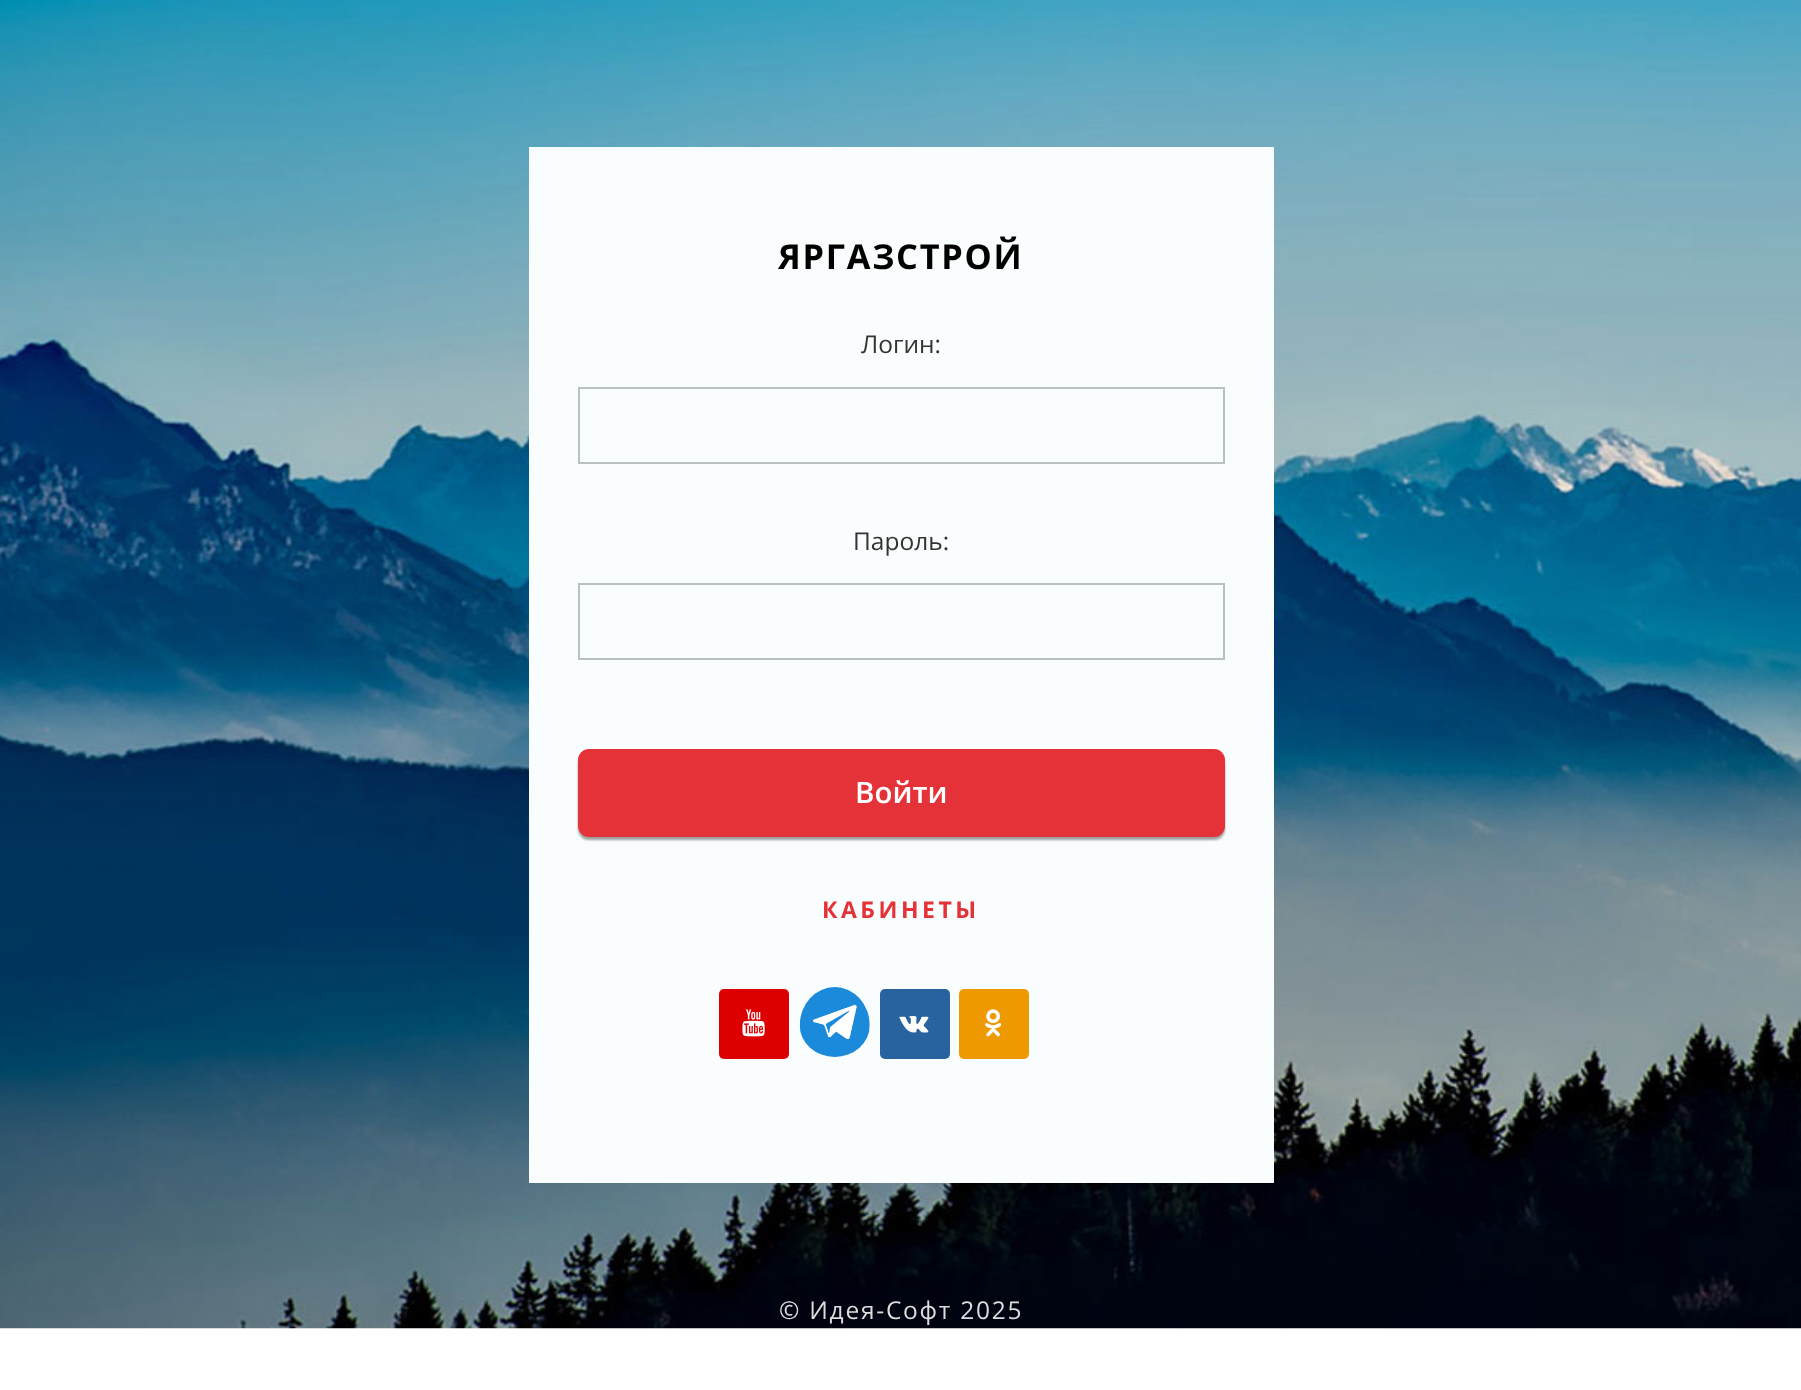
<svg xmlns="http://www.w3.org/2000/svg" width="1801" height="1390">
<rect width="100%" height="100%" fill="#fff"/>
<image x="0" y="0" width="1801" height="1329" href="media/1.png"/>
<rect x="529" y="147" width="745" height="1036" fill="#fafdfd"/>
<text x="778" y="269" style="font-family:Open Sans;font-size:34.25px;font-weight:bold;letter-spacing:1.75px;fill:#000">ЯРГАЗСТРОЙ</text>
<text x="861" y="353" style="font-family:Open Sans;font-size:24.5px;fill:#333">Логин:</text>
<rect x="579" y="388" width="645" height="75" fill="none" stroke="#b9c0c3" stroke-width="2"/>
<text x="853" y="550" style="font-family:Open Sans;font-size:24.5px;fill:#333">Пароль:</text>
<rect x="579" y="584" width="645" height="75" fill="none" stroke="#b9c0c3" stroke-width="2"/>
<rect x="578" y="753" width="647" height="87" rx="11" fill="#1c1c1d6b" filter="blur(1px)"/>
<rect x="578" y="749" width="647" height="88" rx="11" fill="#e53238"/>
<text x="855" y="803" style="font-family:Open Sans;font-size:29.5px;font-weight:600;fill:#fff">Войти</text>
<text x="822" y="918" style="font-family:Open Sans;font-size:23px;font-weight:bold;letter-spacing:3.5px;fill:#e53238">КАБИНЕТЫ</text>
<rect x="719" y="989" width="70" height="70" rx="5" fill="#d00"/>
<image x="742" y="1009" width="23" height="28" href="media/2.png"/>
<image x="799" y="987" width="71" height="70" href="media/3.png"/>
<rect x="880" y="989" width="70" height="70" rx="5" fill="#2863a0"/>
<image x="899" y="1016" width="30" height="17" href="media/4.png"/>
<rect x="959" y="989" width="70" height="70" rx="5" fill="#e90"/>
<image x="985" y="1009" width="17" height="28" href="media/5.png"/>
<text x="779" y="1319" style="font-family:Open Sans;font-size:24.5px;letter-spacing:1.75px;fill:#ddd">© Идея-Софт 2025</text>
</svg>
